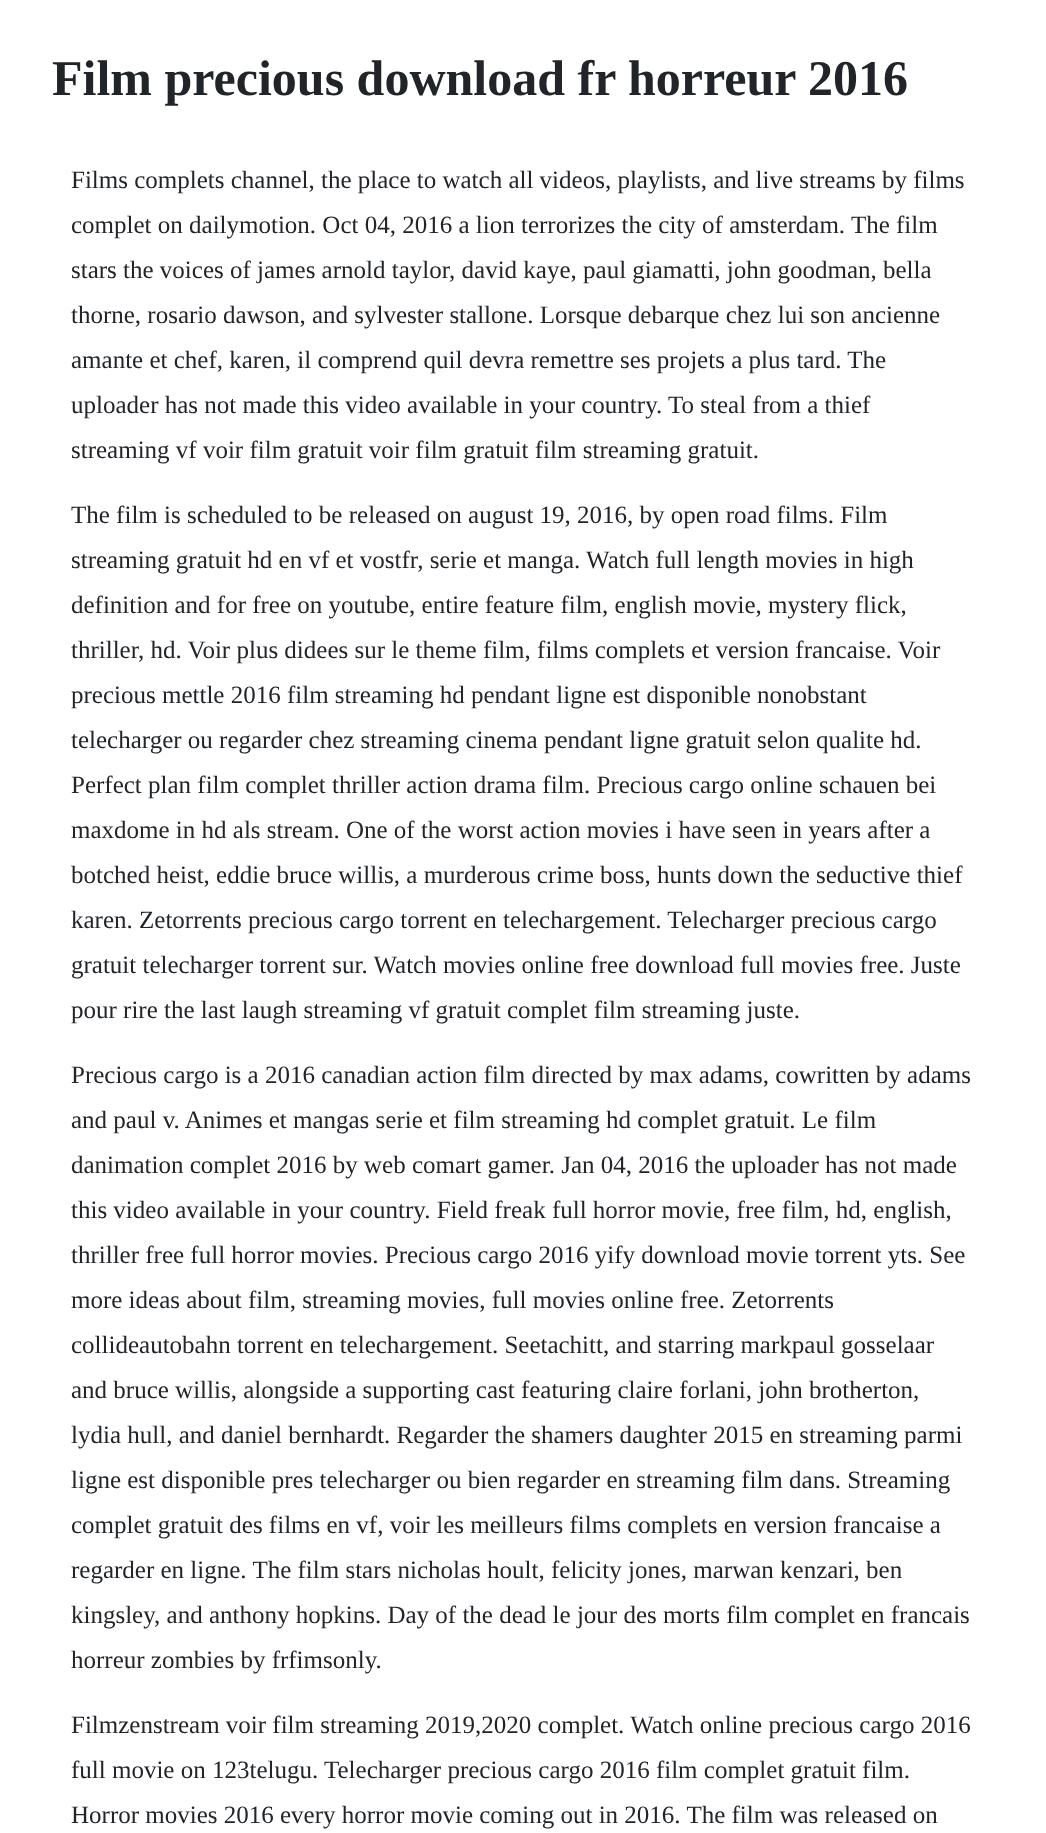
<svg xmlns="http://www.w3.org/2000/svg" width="1046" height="1833">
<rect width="100%" height="100%" fill="#fff"/>
<text x="52" y="95" style="font-family:Liberation Serif;font-size:50px;font-weight:bold;fill:#212529">Film precious download fr horreur 2016</text>
<text x="71" y="188" style="font-family:Liberation Serif;font-size:25px;fill:#212529">Films complets channel, the place to watch all videos, playlists, and live streams by films</text>
<text x="71" y="233" style="font-family:Liberation Serif;font-size:25px;fill:#212529">complet on dailymotion. Oct 04, 2016 a lion terrorizes the city of amsterdam. The film</text>
<text x="71" y="278" style="font-family:Liberation Serif;font-size:25px;fill:#212529">stars the voices of james arnold taylor, david kaye, paul giamatti, john goodman, bella</text>
<text x="71" y="323" style="font-family:Liberation Serif;font-size:25px;fill:#212529">thorne, rosario dawson, and sylvester stallone. Lorsque debarque chez lui son ancienne</text>
<text x="71" y="368" style="font-family:Liberation Serif;font-size:25px;fill:#212529">amante et chef, karen, il comprend quil devra remettre ses projets a plus tard. The</text>
<text x="71" y="413" style="font-family:Liberation Serif;font-size:25px;fill:#212529">uploader has not made this video available in your country. To steal from a thief</text>
<text x="71" y="458" style="font-family:Liberation Serif;font-size:25px;fill:#212529">streaming vf voir film gratuit voir film gratuit film streaming gratuit.</text>
<text x="71" y="523" style="font-family:Liberation Serif;font-size:25px;fill:#212529">The film is scheduled to be released on august 19, 2016, by open road films. Film</text>
<text x="71" y="568" style="font-family:Liberation Serif;font-size:25px;fill:#212529">streaming gratuit hd en vf et vostfr, serie et manga. Watch full length movies in high</text>
<text x="71" y="613" style="font-family:Liberation Serif;font-size:25px;fill:#212529">definition and for free on youtube, entire feature film, english movie, mystery flick,</text>
<text x="71" y="658" style="font-family:Liberation Serif;font-size:25px;fill:#212529">thriller, hd. Voir plus didees sur le theme film, films complets et version francaise. Voir</text>
<text x="71" y="703" style="font-family:Liberation Serif;font-size:25px;fill:#212529">precious mettle 2016 film streaming hd pendant ligne est disponible nonobstant</text>
<text x="71" y="748" style="font-family:Liberation Serif;font-size:25px;fill:#212529">telecharger ou regarder chez streaming cinema pendant ligne gratuit selon qualite hd.</text>
<text x="71" y="793" style="font-family:Liberation Serif;font-size:25px;fill:#212529">Perfect plan film complet thriller action drama film. Precious cargo online schauen bei</text>
<text x="71" y="838" style="font-family:Liberation Serif;font-size:25px;fill:#212529">maxdome in hd als stream. One of the worst action movies i have seen in years after a</text>
<text x="71" y="883" style="font-family:Liberation Serif;font-size:25px;fill:#212529">botched heist, eddie bruce willis, a murderous crime boss, hunts down the seductive thief</text>
<text x="71" y="928" style="font-family:Liberation Serif;font-size:25px;fill:#212529">karen. Zetorrents precious cargo torrent en telechargement. Telecharger precious cargo</text>
<text x="71" y="973" style="font-family:Liberation Serif;font-size:25px;fill:#212529">gratuit telecharger torrent sur. Watch movies online free download full movies free. Juste</text>
<text x="71" y="1018" style="font-family:Liberation Serif;font-size:25px;fill:#212529">pour rire the last laugh streaming vf gratuit complet film streaming juste.</text>
<text x="71" y="1083" style="font-family:Liberation Serif;font-size:25px;fill:#212529">Precious cargo is a 2016 canadian action film directed by max adams, cowritten by adams</text>
<text x="71" y="1128" style="font-family:Liberation Serif;font-size:25px;fill:#212529">and paul v. Animes et mangas serie et film streaming hd complet gratuit. Le film</text>
<text x="71" y="1173" style="font-family:Liberation Serif;font-size:25px;fill:#212529">danimation complet 2016 by web comart gamer. Jan 04, 2016 the uploader has not made</text>
<text x="71" y="1218" style="font-family:Liberation Serif;font-size:25px;fill:#212529">this video available in your country. Field freak full horror movie, free film, hd, english,</text>
<text x="71" y="1263" style="font-family:Liberation Serif;font-size:25px;fill:#212529">thriller free full horror movies. Precious cargo 2016 yify download movie torrent yts. See</text>
<text x="71" y="1308" style="font-family:Liberation Serif;font-size:25px;fill:#212529">more ideas about film, streaming movies, full movies online free. Zetorrents</text>
<text x="71" y="1353" style="font-family:Liberation Serif;font-size:25px;fill:#212529">collideautobahn torrent en telechargement. Seetachitt, and starring markpaul gosselaar</text>
<text x="71" y="1398" style="font-family:Liberation Serif;font-size:25px;fill:#212529">and bruce willis, alongside a supporting cast featuring claire forlani, john brotherton,</text>
<text x="71" y="1443" style="font-family:Liberation Serif;font-size:25px;fill:#212529">lydia hull, and daniel bernhardt. Regarder the shamers daughter 2015 en streaming parmi</text>
<text x="71" y="1488" style="font-family:Liberation Serif;font-size:25px;fill:#212529">ligne est disponible pres telecharger ou bien regarder en streaming film dans. Streaming</text>
<text x="71" y="1533" style="font-family:Liberation Serif;font-size:25px;fill:#212529">complet gratuit des films en vf, voir les meilleurs films complets en version francaise a</text>
<text x="71" y="1578" style="font-family:Liberation Serif;font-size:25px;fill:#212529">regarder en ligne. The film stars nicholas hoult, felicity jones, marwan kenzari, ben</text>
<text x="71" y="1623" style="font-family:Liberation Serif;font-size:25px;fill:#212529">kingsley, and anthony hopkins. Day of the dead le jour des morts film complet en francais</text>
<text x="71" y="1668" style="font-family:Liberation Serif;font-size:25px;fill:#212529">horreur zombies by frfimsonly.</text>
<text x="71" y="1733" style="font-family:Liberation Serif;font-size:25px;fill:#212529">Filmzenstream voir film streaming 2019,2020 complet. Watch online precious cargo 2016</text>
<text x="71" y="1778" style="font-family:Liberation Serif;font-size:25px;fill:#212529">full movie on 123telugu. Telecharger precious cargo 2016 film complet gratuit film.</text>
<text x="71" y="1823" style="font-family:Liberation Serif;font-size:25px;fill:#212529">Horror movies 2016 every horror movie coming out in 2016. The film was released on</text>
</svg>
